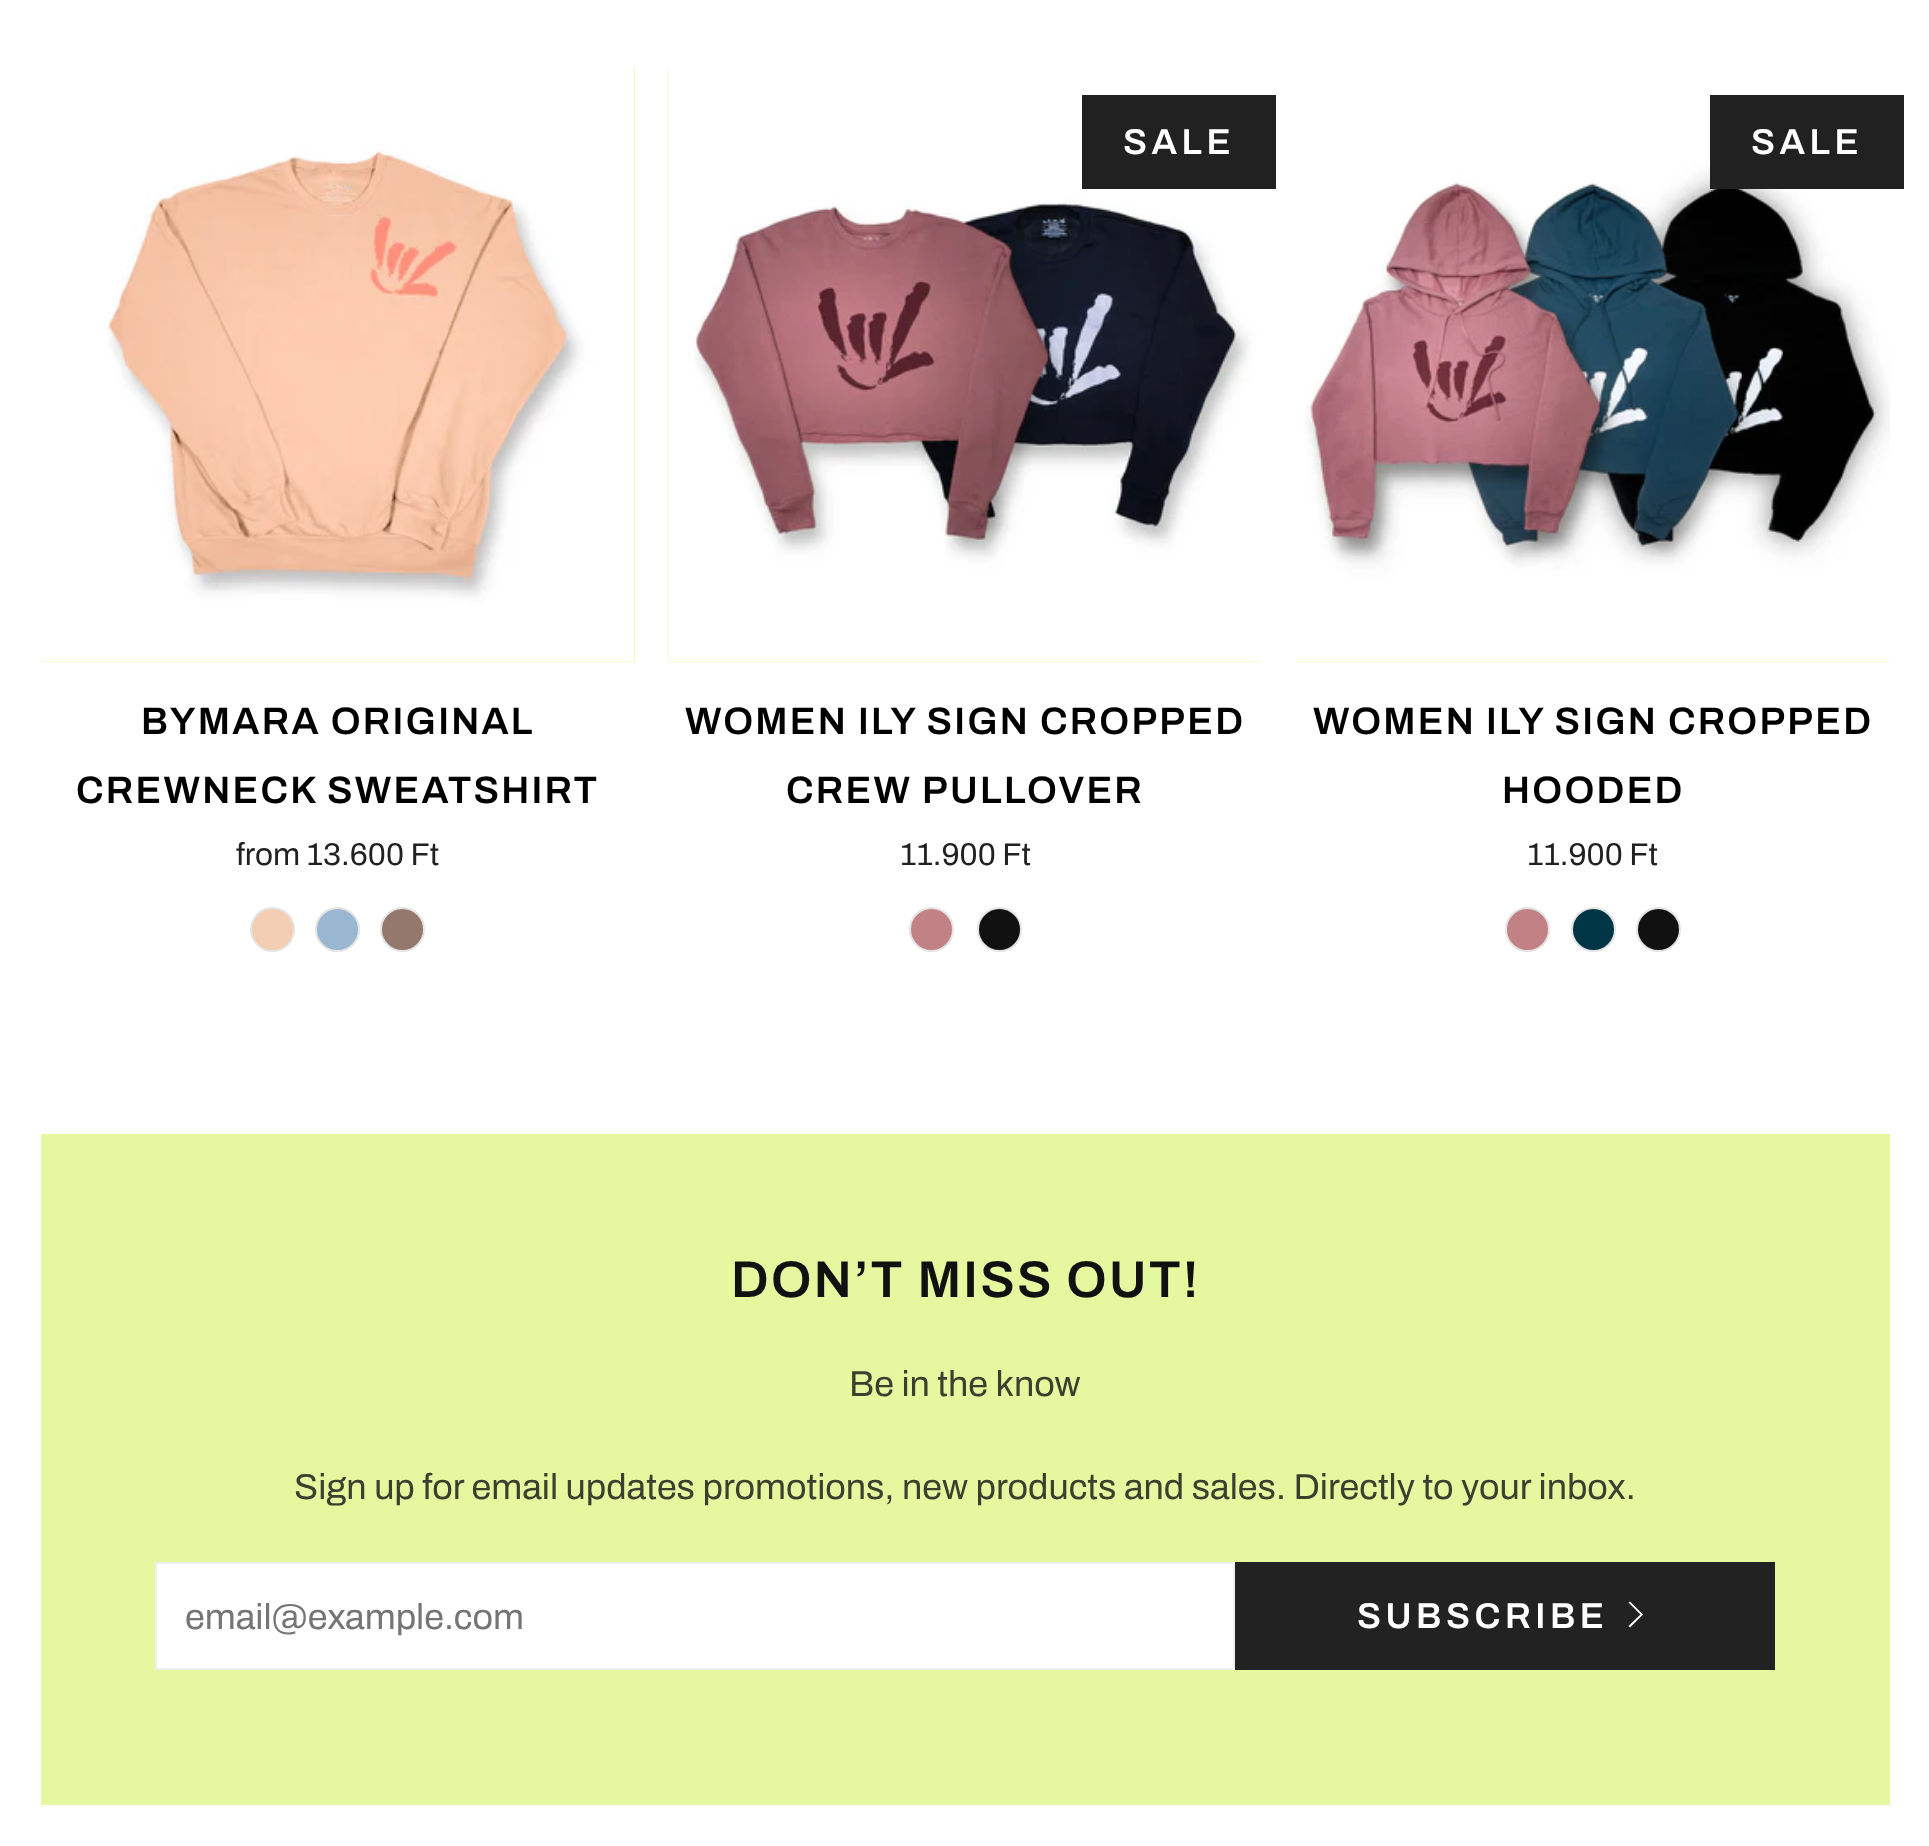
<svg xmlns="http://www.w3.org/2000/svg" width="1929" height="1846">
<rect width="100%" height="100%" fill="#fff"/>
<rect x="41" y="68" width="594" height="594" fill="#e5f8a0"/>
<image x="41" y="68" width="594" height="594" href="media/1.png"/>
<text x="141" y="734" style="font-family:Archivo;font-size:38.25px;font-weight:600;letter-spacing:2.25px;fill:#000">BYMARA ORIGINAL</text>
<text x="76" y="803" style="font-family:Archivo;font-size:38.25px;font-weight:600;letter-spacing:2.25px;fill:#000">CREWNECK SWEATSHIRT</text>
<text x="236" y="865" style="font-family:Archivo;font-size:31.5px;fill:#212121">from 13.600 Ft</text>
<circle cx="272.5" cy="929.5" r="21.5" fill="#f3ceb2" stroke="#e4e4e4" stroke-width="2"/>
<circle cx="337.5" cy="929.5" r="21.5" fill="#99b7d1" stroke="#e4e4e4" stroke-width="2"/>
<circle cx="402.5" cy="929.5" r="21.5" fill="#94786e" stroke="#e4e4e4" stroke-width="2"/>
<rect x="668" y="68" width="594" height="594" fill="#e5f8a0"/>
<image x="668" y="68" width="594" height="594" href="media/2.png"/>
<rect x="1082" y="95" width="194" height="94" fill="#212121"/>
<text x="1123" y="154" style="font-family:Archivo;font-size:36px;font-weight:600;letter-spacing:4.5px;fill:#fff">SALE</text>
<text x="685" y="734" style="font-family:Archivo;font-size:38.25px;font-weight:600;letter-spacing:2.25px;fill:#000">WOMEN ILY SIGN CROPPED</text>
<text x="786" y="803" style="font-family:Archivo;font-size:38.25px;font-weight:600;letter-spacing:2.25px;fill:#000">CREW PULLOVER</text>
<text x="900" y="865" style="font-family:Archivo;font-size:31.5px;fill:#212121">11.900 Ft</text>
<circle cx="931.5" cy="929.5" r="21.5" fill="#c28285" stroke="#e4e4e4" stroke-width="2"/>
<circle cx="999.5" cy="929.5" r="21.5" fill="#111" stroke="#e4e4e4" stroke-width="2"/>
<rect x="1296" y="661" width="594" height="1" fill="#e5f8a0"/>
<image x="1296" y="68" width="594" height="594" href="media/3.png"/>
<rect x="1710" y="95" width="194" height="94" fill="#212121"/>
<text x="1751" y="154" style="font-family:Archivo;font-size:36px;font-weight:600;letter-spacing:4.5px;fill:#fff">SALE</text>
<text x="1313" y="734" style="font-family:Archivo;font-size:38.25px;font-weight:600;letter-spacing:2.25px;fill:#000">WOMEN ILY SIGN CROPPED</text>
<text x="1502" y="803" style="font-family:Archivo;font-size:38.25px;font-weight:600;letter-spacing:2.25px;fill:#000">HOODED</text>
<text x="1527" y="865" style="font-family:Archivo;font-size:31.5px;fill:#212121">11.900 Ft</text>
<circle cx="1527.5" cy="929.5" r="21.5" fill="#c28285" stroke="#e4e4e4" stroke-width="2"/>
<circle cx="1593.5" cy="929.5" r="21.5" fill="#003546" stroke="#e4e4e4" stroke-width="2"/>
<circle cx="1658.5" cy="929.5" r="21.5" fill="#111" stroke="#e4e4e4" stroke-width="2"/>
<rect x="41" y="1134" width="1849" height="671" fill="#e5f8a0"/>
<text x="731" y="1297" style="font-family:Archivo;font-size:51.75px;font-weight:600;letter-spacing:2.25px;fill:#111">DON’T MISS OUT!</text>
<text x="849" y="1396" style="font-family:Archivo;font-size:36px;fill:#3b3f2e">Be in the know</text>
<text x="294" y="1499" style="font-family:Archivo;font-size:36px;fill:#3b3f2e">Sign up for email updates promotions, new products and sales. Directly to your inbox.</text>
<rect x="156" y="1563" width="1078" height="106" fill="#fff" stroke="#f0f0f0" stroke-width="2"/>
<text x="185" y="1629" style="font-family:Archivo;font-size:36px;fill:#757575">email@example.com</text>
<rect x="1235" y="1562" width="540" height="108" fill="#222"/>
<text x="1357" y="1628" style="font-family:Archivo;font-size:36px;font-weight:600;letter-spacing:4.5px;fill:#fff">SUBSCRIBE</text>
<path d="M1628.5 1626l1.5 1.5l13-13l-13-13l-1.5 1l12 12z" fill="#fff"/>
</svg>
